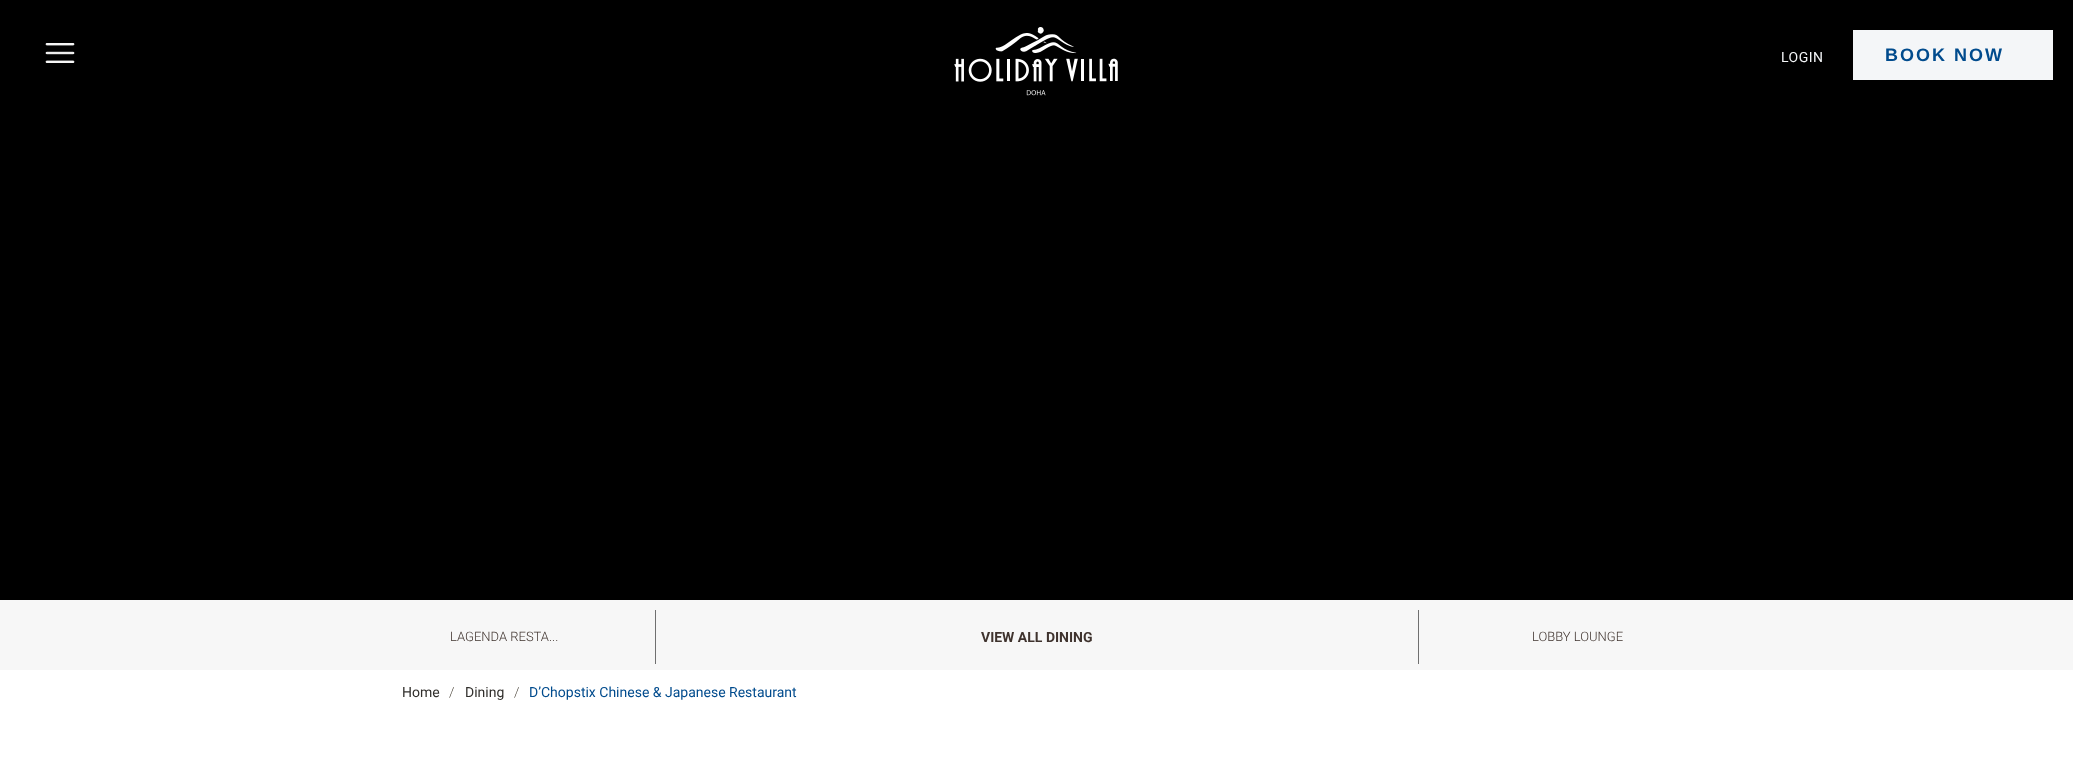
<svg xmlns="http://www.w3.org/2000/svg" width="2073" height="777">
<rect width="100%" height="100%" fill="#fff"/>
<rect width="2073" height="600" fill="#000"/>
<image x="45" y="43" width="30" height="20" href="media/1.png"/>
<image x="954" y="27" width="164" height="69" href="media/2.png"/>
<text x="1781" y="62" style="font-family:Roboto;font-size:14px;letter-spacing:0.5px;fill:#f4f6f8">LOGIN</text>
<rect x="1853" y="30" width="200" height="50" fill="#f4f6f8"/>
<text x="1885" y="61" style="font-family:Liberation Sans;font-size:18px;font-weight:bold;letter-spacing:2px;fill:#004b8d">BOOK NOW</text>
<rect y="600" width="2073" height="70" fill="#f7f7f7"/>
<rect x="655" y="610" width="1" height="54" fill="#707070"/>
<text x="450" y="641" style="font-family:Roboto;font-size:13px;font-weight:300;fill:#3f332e">LAGENDA RESTA...</text>
<text x="981" y="642" style="font-family:Roboto;font-size:14px;font-weight:bold;fill:#3f332e">VIEW ALL DINING</text>
<rect x="1418" y="610" width="1" height="54" fill="#707070"/>
<text x="1532" y="641" style="font-family:Roboto;font-size:13px;font-weight:300;fill:#3f332e">LOBBY LOUNGE</text>
<text x="402" y="697" style="font-family:Roboto;font-size:14px;fill:#312f2c">Home</text>
<text x="449" y="697" style="font-family:Roboto;font-size:14px;font-weight:200;fill:#231b0e">/</text>
<text x="465" y="697" style="font-family:Roboto;font-size:14px;fill:#312f2c">Dining</text>
<text x="514" y="697" style="font-family:Roboto;font-size:14px;font-weight:200;fill:#231b0e">/</text>
<text x="529" y="697" style="font-family:Roboto;font-size:14px;fill:#004b8d">D’Chopstix Chinese &amp; Japanese Restaurant</text>
</svg>
